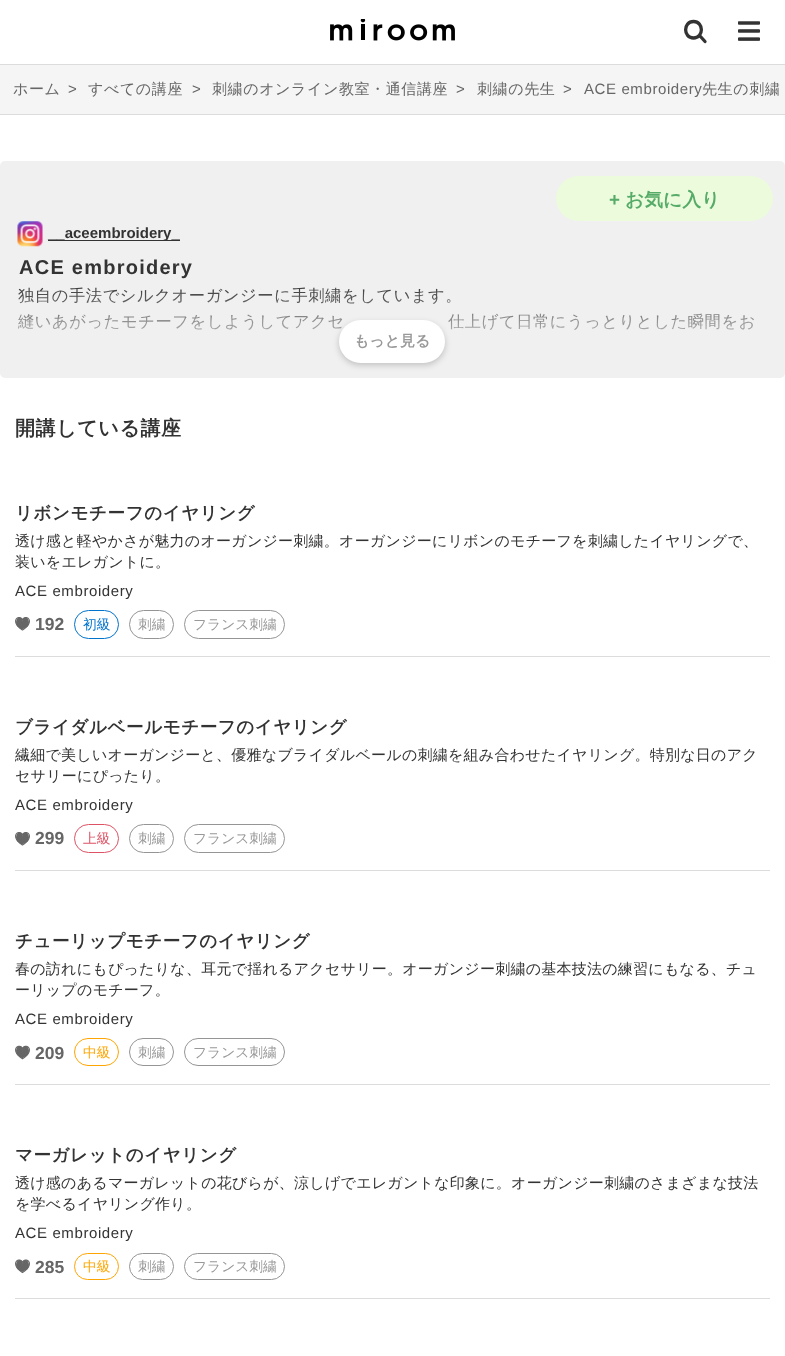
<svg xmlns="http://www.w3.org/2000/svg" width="785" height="1356">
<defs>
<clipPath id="clip1"><rect x="18" y="284" width="750" height="75"/></clipPath>
<linearGradient id="g1" gradientUnits="userSpaceOnUse" x1="393" y1="284" x2="393" y2="363"><stop offset="0" stop-color="#f0f0f0" stop-opacity="0"/><stop offset="0.9" stop-color="#f0f0f0" stop-opacity="0.95"/></linearGradient>
</defs>
<rect width="100%" height="100%" fill="#fff"/>
<rect y="64" width="785" height="1" fill="#dcdcdc"/>
<image x="330" y="19" width="125" height="22" href="media/1.png"/>
<path d="M693.5 38c10.5 0 10.5-16.5 0-16.5c-10.5 0-10.5 16.5 0 16.5zm11.5 3.5l-4.5-5" fill="none" stroke="#333" stroke-width="3.3" stroke-linecap="round" stroke-linejoin="round"/>
<image x="738" y="21" width="22" height="20" href="media/2.png"/>
<rect y="65" width="785" height="49" fill="#f5f5f5"/>
<rect y="114" width="785" height="1" fill="#dcdcdc"/>
<text x="13" y="94" style="font-family:WenQuanYi Zen Hei;font-size:15px;font-weight:500;letter-spacing:0.6px;fill:#666">ホーム</text>
<text x="68" y="94" style="font-family:Liberation Sans;font-size:15px;letter-spacing:4px;fill:#666">&gt;</text>
<text x="88" y="94" style="font-family:WenQuanYi Zen Hei;font-size:15px;font-weight:500;letter-spacing:0.6px;fill:#666">すべての講座</text>
<text x="192" y="94" style="font-family:Liberation Sans;font-size:15px;letter-spacing:4px;fill:#666">&gt;</text>
<text x="212" y="94" style="font-family:WenQuanYi Zen Hei;font-size:15px;font-weight:500;letter-spacing:0.6px;fill:#666">刺繍のオンライン教室・通信講座</text>
<text x="456" y="94" style="font-family:Liberation Sans;font-size:15px;letter-spacing:4px;fill:#666">&gt;</text>
<text x="477" y="94" style="font-family:WenQuanYi Zen Hei;font-size:15px;font-weight:500;letter-spacing:0.6px;fill:#666">刺繍の先生</text>
<text x="563" y="94" style="font-family:Liberation Sans;font-size:15px;letter-spacing:4px;fill:#666">&gt;</text>
<text x="584" y="94" style="font-family:Liberation Sans;font-size:15px;letter-spacing:0.6px;fill:#666">ACE embroidery</text>
<text x="702" y="94" style="font-family:WenQuanYi Zen Hei;font-size:15px;font-weight:500;letter-spacing:0.6px;fill:#666">先生の刺繍</text>
<rect y="161" width="785" height="217" rx="5" fill="#f0f0f0"/>
<rect x="556" y="176" width="217" height="45" rx="22.5" fill="#ebfbdc"/>
<text x="609" y="206" style="font-family:Liberation Sans;font-size:18.75px;font-weight:bold;fill:#55ab67">+</text>
<text x="625" y="206" style="font-family:WenQuanYi Zen Hei;font-size:18.75px;font-weight:bold;fill:#55ab67">お気に入り</text>
<image x="17" y="221" width="26" height="26" href="media/3.png"/>
<rect x="48" y="240" width="132" height="1" fill="#333"/>
<text x="48" y="238" style="font-family:Liberation Sans;font-size:15px;font-weight:bold;fill:#333">__aceembroidery_</text>
<text x="19" y="274" style="font-family:Liberation Sans;font-size:20px;font-weight:bold;letter-spacing:1.25px;fill:#333">ACE embroidery</text>
<text x="18" y="301" style="font-family:WenQuanYi Zen Hei;font-size:16.25px;font-weight:500;letter-spacing:0.6px;fill:#333">独自の手法でシルクオーガンジーに手刺繍をしています。</text>
<g clip-path="url(#clip1)">
<text x="18" y="327" style="font-family:WenQuanYi Zen Hei;font-size:16.25px;font-weight:500;letter-spacing:0.6px;fill:#333">縫いあがったモチーフをしようしてアクセ</text>
</g>
<text x="448" y="327" style="font-family:WenQuanYi Zen Hei;font-size:16.25px;font-weight:500;letter-spacing:0.6px;fill:#333">仕上げて日常にうっとりとした瞬間をお</text>
<rect x="18" y="287" width="736" height="43" fill="url(#g1)"/>
<rect x="339" y="323" width="106" height="42" rx="21" fill="#00000033" filter="blur(3px)"/>
<rect x="339" y="320" width="106" height="43" rx="21.5" fill="#fff"/>
<text x="354" y="346" style="font-family:WenQuanYi Zen Hei;font-size:15px;font-weight:bold;fill:#999">もっと見る</text>
<text x="15" y="435" style="font-family:WenQuanYi Zen Hei;font-size:20px;font-weight:bold;letter-spacing:0.6px;fill:#333">開講している講座</text>
<rect x="15" y="656" width="755" height="1" fill="#dcdcdc"/>
<text x="15" y="519" style="font-family:WenQuanYi Zen Hei;font-size:17.5px;font-weight:bold;letter-spacing:0.6px;fill:#333">リボンモチーフのイヤリング</text>
<text x="15" y="546" style="font-family:WenQuanYi Zen Hei;font-size:15px;font-weight:500;letter-spacing:0.25px;fill:#333">透け感と軽やかさが魅力のオーガンジー刺繍。オーガンジーにリボンのモチーフを刺繍したイヤリングで、</text>
<text x="15" y="567" style="font-family:WenQuanYi Zen Hei;font-size:15px;font-weight:500;letter-spacing:0.25px;fill:#333">装いをエレガントに。</text>
<text x="15" y="596" style="font-family:Liberation Sans;font-size:15px;letter-spacing:0.6px;fill:#333">ACE embroidery</text>
<image x="15" y="617" width="15" height="14" href="media/4.png"/>
<text x="35" y="630" style="font-family:Liberation Sans;font-size:17.5px;font-weight:bold;fill:#666">192</text>
<rect x="74.5" y="610.5" width="44" height="28" rx="14" fill="none" stroke="#0073cc"/>
<text x="83" y="629" style="font-family:WenQuanYi Zen Hei;font-size:13.75px;font-weight:500;fill:#0073cc">初級</text>
<rect x="129.5" y="610.5" width="44" height="28" rx="14" fill="none" stroke="#969595"/>
<text x="138" y="629" style="font-family:WenQuanYi Zen Hei;font-size:13.75px;font-weight:500;fill:#999">刺繍</text>
<rect x="184.5" y="610.5" width="100" height="28" rx="14" fill="none" stroke="#969595"/>
<text x="193" y="629" style="font-family:WenQuanYi Zen Hei;font-size:13.75px;font-weight:500;fill:#999">フランス刺繍</text>
<rect x="15" y="870" width="755" height="1" fill="#dcdcdc"/>
<text x="15" y="733" style="font-family:WenQuanYi Zen Hei;font-size:17.5px;font-weight:bold;letter-spacing:0.6px;fill:#333">ブライダルベールモチーフのイヤリング</text>
<text x="15" y="760" style="font-family:WenQuanYi Zen Hei;font-size:15px;font-weight:500;letter-spacing:0.25px;fill:#333">繊細で美しいオーガンジーと、優雅なブライダルベールの刺繍を組み合わせたイヤリング。特別な日のアク</text>
<text x="15" y="781" style="font-family:WenQuanYi Zen Hei;font-size:15px;font-weight:500;letter-spacing:0.25px;fill:#333">セサリーにぴったり。</text>
<text x="15" y="810" style="font-family:Liberation Sans;font-size:15px;letter-spacing:0.6px;fill:#333">ACE embroidery</text>
<image x="15" y="832" width="15" height="14" href="media/4.png"/>
<text x="35" y="844" style="font-family:Liberation Sans;font-size:17.5px;font-weight:bold;fill:#666">299</text>
<rect x="74.5" y="824.5" width="44" height="28" rx="14" fill="none" stroke="#dd5365"/>
<text x="83" y="843" style="font-family:WenQuanYi Zen Hei;font-size:13.75px;font-weight:500;fill:#dd5365">上級</text>
<rect x="129.5" y="824.5" width="44" height="28" rx="14" fill="none" stroke="#969595"/>
<text x="138" y="843" style="font-family:WenQuanYi Zen Hei;font-size:13.75px;font-weight:500;fill:#999">刺繍</text>
<rect x="184.5" y="824.5" width="100" height="28" rx="14" fill="none" stroke="#969595"/>
<text x="193" y="843" style="font-family:WenQuanYi Zen Hei;font-size:13.75px;font-weight:500;fill:#999">フランス刺繍</text>
<rect x="15" y="1084" width="755" height="1" fill="#dcdcdc"/>
<text x="15" y="947" style="font-family:WenQuanYi Zen Hei;font-size:17.5px;font-weight:bold;letter-spacing:0.6px;fill:#333">チューリップモチーフのイヤリング</text>
<text x="15" y="974" style="font-family:WenQuanYi Zen Hei;font-size:15px;font-weight:500;letter-spacing:0.25px;fill:#333">春の訪れにもぴったりな、耳元で揺れるアクセサリー。オーガンジー刺繍の基本技法の練習にもなる、チュ</text>
<text x="15" y="995" style="font-family:WenQuanYi Zen Hei;font-size:15px;font-weight:500;letter-spacing:0.25px;fill:#333">ーリップのモチーフ。</text>
<text x="15" y="1024" style="font-family:Liberation Sans;font-size:15px;letter-spacing:0.6px;fill:#333">ACE embroidery</text>
<image x="15" y="1045" width="15" height="15" href="media/5.png"/>
<text x="35" y="1059" style="font-family:Liberation Sans;font-size:17.5px;font-weight:bold;fill:#666">209</text>
<rect x="74.5" y="1038.5" width="44" height="27" rx="13.5" fill="none" stroke="#ffa500"/>
<text x="83" y="1057" style="font-family:WenQuanYi Zen Hei;font-size:13.75px;font-weight:500;fill:#ffa500">中級</text>
<rect x="129.5" y="1038.5" width="44" height="27" rx="13.5" fill="none" stroke="#969595"/>
<text x="138" y="1057" style="font-family:WenQuanYi Zen Hei;font-size:13.75px;font-weight:500;fill:#999">刺繍</text>
<rect x="184.5" y="1038.5" width="100" height="27" rx="13.5" fill="none" stroke="#969595"/>
<text x="193" y="1057" style="font-family:WenQuanYi Zen Hei;font-size:13.75px;font-weight:500;fill:#999">フランス刺繍</text>
<rect x="15" y="1298" width="755" height="1" fill="#dcdcdc"/>
<text x="15" y="1161" style="font-family:WenQuanYi Zen Hei;font-size:17.5px;font-weight:bold;letter-spacing:0.6px;fill:#333">マーガレットのイヤリング</text>
<text x="15" y="1188" style="font-family:WenQuanYi Zen Hei;font-size:15px;font-weight:500;letter-spacing:0.25px;fill:#333">透け感のあるマーガレットの花びらが、涼しげでエレガントな印象に。オーガンジー刺繍のさまざまな技法</text>
<text x="15" y="1209" style="font-family:WenQuanYi Zen Hei;font-size:15px;font-weight:500;letter-spacing:0.25px;fill:#333">を学べるイヤリング作り。</text>
<text x="15" y="1238" style="font-family:Liberation Sans;font-size:15px;letter-spacing:0.6px;fill:#333">ACE embroidery</text>
<image x="15" y="1259" width="15" height="15" href="media/6.png"/>
<text x="35" y="1273" style="font-family:Liberation Sans;font-size:17.5px;font-weight:bold;fill:#666">285</text>
<rect x="74.5" y="1253.5" width="44" height="26" rx="13" fill="none" stroke="#ffa500"/>
<text x="83" y="1271" style="font-family:WenQuanYi Zen Hei;font-size:13.75px;font-weight:500;fill:#ffa500">中級</text>
<rect x="129.5" y="1253.5" width="44" height="26" rx="13" fill="none" stroke="#969595"/>
<text x="138" y="1271" style="font-family:WenQuanYi Zen Hei;font-size:13.75px;font-weight:500;fill:#999">刺繍</text>
<rect x="184.5" y="1253.5" width="100" height="26" rx="13" fill="none" stroke="#969595"/>
<text x="193" y="1271" style="font-family:WenQuanYi Zen Hei;font-size:13.75px;font-weight:500;fill:#999">フランス刺繍</text>
</svg>
